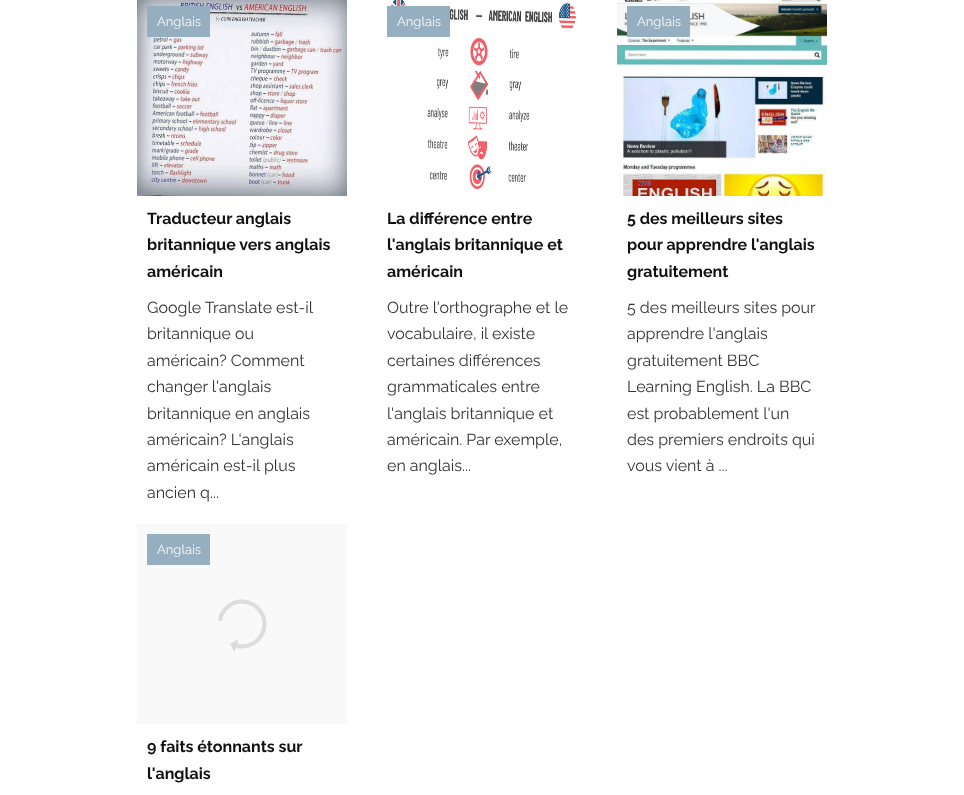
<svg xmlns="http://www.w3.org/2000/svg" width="964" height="795">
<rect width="100%" height="100%" fill="#fff"/>
<image x="137" y="0" width="210" height="196" href="media/1.png"/>
<rect x="147" y="6" width="63" height="31" fill="#95afc0"/>
<text x="157" y="26" style="font-family:Raleway;font-size:13px;fill:#f9f9f9">Anglais</text>
<text x="147" y="224" style="font-family:Raleway;font-size:16px;font-weight:bold;fill:#111">Traducteur anglais</text>
<text x="147" y="250" style="font-family:Raleway;font-size:16px;font-weight:bold;fill:#111">britannique vers anglais</text>
<text x="147" y="277" style="font-family:Raleway;font-size:16px;font-weight:bold;fill:#111">américain</text>
<text x="147" y="313" style="font-family:Raleway;font-size:16px;fill:#333">Google Translate est-il</text>
<text x="147" y="339" style="font-family:Raleway;font-size:16px;fill:#333">britannique ou</text>
<text x="147" y="366" style="font-family:Raleway;font-size:16px;fill:#333">américain? Comment</text>
<text x="147" y="392" style="font-family:Raleway;font-size:16px;fill:#333">changer l'anglais</text>
<text x="147" y="419" style="font-family:Raleway;font-size:16px;fill:#333">britannique en anglais</text>
<text x="147" y="445" style="font-family:Raleway;font-size:16px;fill:#333">américain? L'anglais</text>
<text x="147" y="471" style="font-family:Raleway;font-size:16px;fill:#333">américain est-il plus</text>
<text x="147" y="498" style="font-family:Raleway;font-size:16px;fill:#333">ancien q...</text>
<image x="377" y="0" width="210" height="196" href="media/2.png"/>
<rect x="387" y="6" width="63" height="31" fill="#95afc0"/>
<text x="397" y="26" style="font-family:Raleway;font-size:13px;fill:#f9f9f9">Anglais</text>
<text x="387" y="224" style="font-family:Raleway;font-size:16px;font-weight:bold;fill:#111">La différence entre</text>
<text x="387" y="250" style="font-family:Raleway;font-size:16px;font-weight:bold;fill:#111">l'anglais britannique et</text>
<text x="387" y="277" style="font-family:Raleway;font-size:16px;font-weight:bold;fill:#111">américain</text>
<text x="387" y="313" style="font-family:Raleway;font-size:16px;fill:#333">Outre l'orthographe et le</text>
<text x="387" y="339" style="font-family:Raleway;font-size:16px;fill:#333">vocabulaire, il existe</text>
<text x="387" y="366" style="font-family:Raleway;font-size:16px;fill:#333">certaines différences</text>
<text x="387" y="392" style="font-family:Raleway;font-size:16px;fill:#333">grammaticales entre</text>
<text x="387" y="419" style="font-family:Raleway;font-size:16px;fill:#333">l'anglais britannique et</text>
<text x="387" y="445" style="font-family:Raleway;font-size:16px;fill:#333">américain. Par exemple,</text>
<text x="387" y="471" style="font-family:Raleway;font-size:16px;fill:#333">en anglais...</text>
<image x="617" y="0" width="210" height="196" href="media/3.png"/>
<rect x="627" y="6" width="63" height="31" fill="#95afc0"/>
<text x="637" y="26" style="font-family:Raleway;font-size:13px;fill:#f9f9f9">Anglais</text>
<text x="627" y="224" style="font-family:Raleway;font-size:16px;font-weight:bold;fill:#111">5 des meilleurs sites</text>
<text x="627" y="250" style="font-family:Raleway;font-size:16px;font-weight:bold;fill:#111">pour apprendre l'anglais</text>
<text x="627" y="277" style="font-family:Raleway;font-size:16px;font-weight:bold;fill:#111">gratuitement</text>
<text x="627" y="313" style="font-family:Raleway;font-size:16px;fill:#333">5 des meilleurs sites pour</text>
<text x="627" y="339" style="font-family:Raleway;font-size:16px;fill:#333">apprendre l'anglais</text>
<text x="627" y="366" style="font-family:Raleway;font-size:16px;fill:#333">gratuitement BBC</text>
<text x="627" y="392" style="font-family:Raleway;font-size:16px;fill:#333">Learning English. La BBC</text>
<text x="627" y="419" style="font-family:Raleway;font-size:16px;fill:#333">est probablement l'un</text>
<text x="627" y="445" style="font-family:Raleway;font-size:16px;fill:#333">des premiers endroits qui</text>
<text x="627" y="471" style="font-family:Raleway;font-size:16px;fill:#333">vous vient à ...</text>
<rect x="137" y="524" width="210" height="200" fill="#f9f9f9"/>
<image x="218" y="599" width="49" height="53" href="media/4.png"/>
<rect x="147" y="534" width="63" height="31" fill="#95afc0"/>
<text x="157" y="554" style="font-family:Raleway;font-size:13px;fill:#f9f9f9">Anglais</text>
<text x="147" y="752" style="font-family:Raleway;font-size:16px;font-weight:bold;fill:#111">9 faits étonnants sur</text>
<text x="147" y="779" style="font-family:Raleway;font-size:16px;font-weight:bold;fill:#111">l'anglais</text>
</svg>
